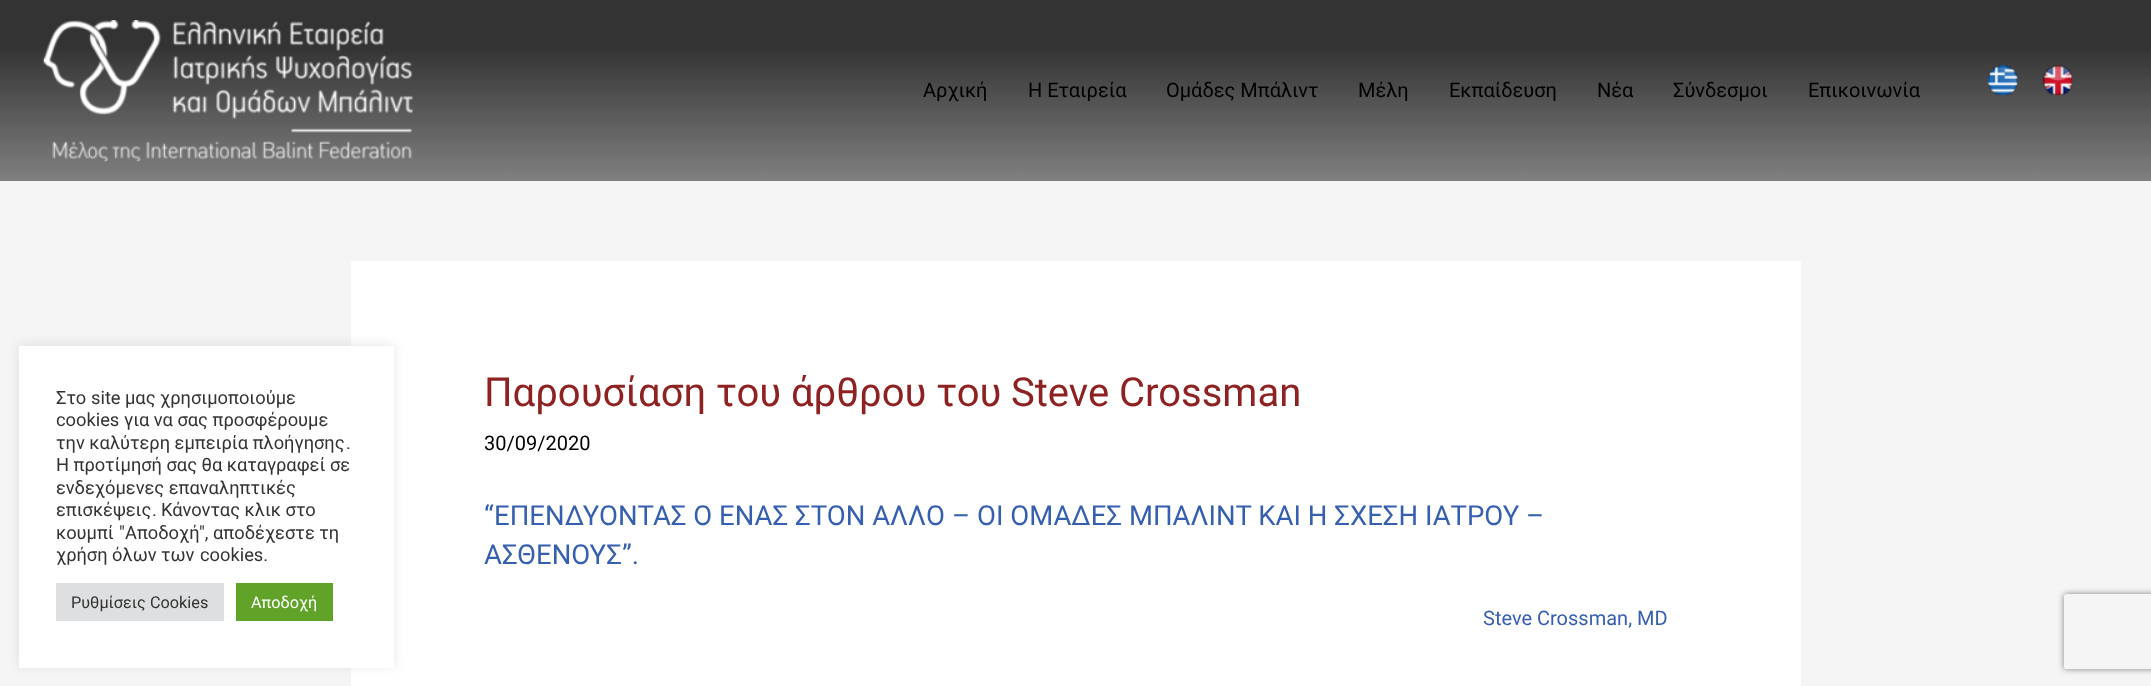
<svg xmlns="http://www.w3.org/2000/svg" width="2151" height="686">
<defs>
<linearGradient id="g1" gradientUnits="userSpaceOnUse" x1="1076" y1="0" x2="1076" y2="181"><stop offset="0.25" stop-color="#333"/><stop offset="1" stop-color="#808080"/></linearGradient>
<clipPath id="clip1"><path d="M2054 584h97v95h-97zm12.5 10h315c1.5 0 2.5 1 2.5 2.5v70c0 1.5-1 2.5-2.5 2.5h-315c-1.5 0-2.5-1-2.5-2.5v-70c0-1.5 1-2.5 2.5-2.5z" clip-rule="evenodd"/></clipPath>
</defs>
<rect width="100%" height="100%" fill="#f5f5f5"/>
<rect x="351" y="261" width="1450" height="425" fill="#fff"/>
<rect x="19" y="345" width="375" height="321" fill="#acabab4d" filter="blur(6px)"/>
<rect x="19" y="346" width="375" height="322" fill="#fff"/>
<text x="56" y="404" style="font-family:Roboto;font-size:18.3px;fill:#333">Στο</text>
<text x="91" y="404" style="font-family:'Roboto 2';font-size:18.3px;fill:#333">site</text>
<text x="125" y="404" style="font-family:Roboto;font-size:18.3px;fill:#333">μας χρησιμοποιούμε</text>
<text x="56" y="426" style="font-family:'Roboto 2';font-size:18.3px;fill:#333">cookies</text>
<text x="124" y="426" style="font-family:Roboto;font-size:18.3px;fill:#333">για να σας προσφέρουμε</text>
<text x="56" y="449" style="font-family:Roboto;font-size:18.3px;fill:#333">την καλύτερη εμπειρία πλοήγησης</text>
<text x="346" y="449" style="font-family:'Roboto 2';font-size:18.3px;fill:#333">.</text>
<text x="56" y="471" style="font-family:Roboto;font-size:18.3px;fill:#333">Η προτίμησή σας θα καταγραφεί σε</text>
<text x="56" y="494" style="font-family:Roboto;font-size:18.3px;fill:#333">ενδεχόμενες επαναληπτικές</text>
<text x="56" y="516" style="font-family:Roboto;font-size:18.3px;fill:#333">επισκέψεις</text>
<text x="152" y="516" style="font-family:'Roboto 2';font-size:18.3px;fill:#333">.</text>
<text x="161" y="516" style="font-family:Roboto;font-size:18.3px;fill:#333">Κάνοντας κλικ στο</text>
<text x="56" y="539" style="font-family:Roboto;font-size:18.3px;fill:#333">κουμπί</text>
<text x="119" y="539" style="font-family:'Roboto 2';font-size:18.3px;fill:#333">"</text>
<text x="125" y="539" style="font-family:Roboto;font-size:18.3px;fill:#333">Αποδοχή</text>
<text x="199" y="539" style="font-family:'Roboto 2';font-size:18.3px;fill:#333">",</text>
<text x="213" y="539" style="font-family:Roboto;font-size:18.3px;fill:#333">αποδέχεστε τη</text>
<text x="56" y="561" style="font-family:Roboto;font-size:18.3px;fill:#333">χρήση όλων των</text>
<text x="200" y="561" style="font-family:'Roboto 2';font-size:18.3px;fill:#333">cookies.</text>
<rect x="56" y="583" width="168" height="38" fill="#dedfe0"/>
<text x="71" y="608" style="font-family:Roboto;font-size:16.25px;fill:#333">Ρυθμίσεις</text>
<text x="150" y="608" style="font-family:'Roboto 2';font-size:16.25px;fill:#333">Cookies</text>
<rect x="236" y="583" width="97" height="38" fill="#61a229"/>
<text x="251" y="608" style="font-family:Roboto;font-size:16.25px;fill:#fff">Αποδοχή</text>
<rect width="2151" height="181" fill="url(#g1)"/>
<image x="43" y="20" width="370" height="142" href="media/1.png"/>
<text x="923" y="97" style="font-family:Roboto;font-size:20px;fill:#000">Αρχική</text>
<text x="1028" y="97" style="font-family:Roboto;font-size:20px;fill:#000">Η Εταιρεία</text>
<text x="1166" y="97" style="font-family:Roboto;font-size:20px;fill:#000">Ομάδες Μπάλιντ</text>
<text x="1358" y="97" style="font-family:Roboto;font-size:20px;fill:#000">Μέλη</text>
<text x="1449" y="97" style="font-family:Roboto;font-size:20px;fill:#000">Εκπαίδευση</text>
<text x="1597" y="97" style="font-family:Roboto;font-size:20px;fill:#000">Νέα</text>
<text x="1673" y="97" style="font-family:Roboto;font-size:20px;fill:#000">Σύνδεσμοι</text>
<text x="1808" y="97" style="font-family:Roboto;font-size:20px;fill:#000">Επικοινωνία</text>
<image x="1987" y="65" width="31" height="30" href="media/2.png"/>
<image x="2042" y="65" width="31" height="30" href="media/3.png"/>
<text x="484" y="406" style="font-family:Roboto;font-size:40px;fill:#8e2222">Παρουσίαση του άρθρου του</text>
<text x="1011" y="406" style="font-family:'Roboto 2';font-size:40px;fill:#8e2222">Steve Crossman</text>
<text x="484" y="450" style="font-family:'Roboto 2';font-size:20px;fill:#000">30/09/2020</text>
<text x="484" y="525" style="font-family:'Roboto 2';font-size:27.5px;fill:#365faf">“</text>
<text x="494" y="525" style="font-family:Roboto;font-size:27.5px;fill:#365faf">ΕΠΕΝΔΥΟΝΤΑΣ Ο ΕΝΑΣ ΣΤΟΝ ΑΛΛΟ</text>
<text x="952" y="525" style="font-family:'Roboto 2';font-size:27.5px;fill:#365faf">–</text>
<text x="977" y="525" style="font-family:Roboto;font-size:27.5px;fill:#365faf">ΟΙ ΟΜΑΔΕΣ ΜΠΑΛΙΝΤ ΚΑΙ Η ΣΧΕΣΗ ΙΑΤΡΟΥ</text>
<text x="1526" y="525" style="font-family:'Roboto 2';font-size:27.5px;fill:#365faf">–</text>
<text x="484" y="564" style="font-family:Roboto;font-size:27.5px;fill:#365faf">ΑΣΘΕΝΟΥΣ</text>
<text x="622" y="564" style="font-family:'Roboto 2';font-size:27.5px;fill:#365faf">”.</text>
<text x="1483" y="625" style="font-family:'Roboto 2';font-size:20px;fill:#365faf">Steve Crossman, MD</text>
<g clip-path="url(#clip1)">
<rect x="2064" y="594" width="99" height="75" rx="2.5" fill="#808080" filter="blur(3px)"/>
</g>
</svg>
